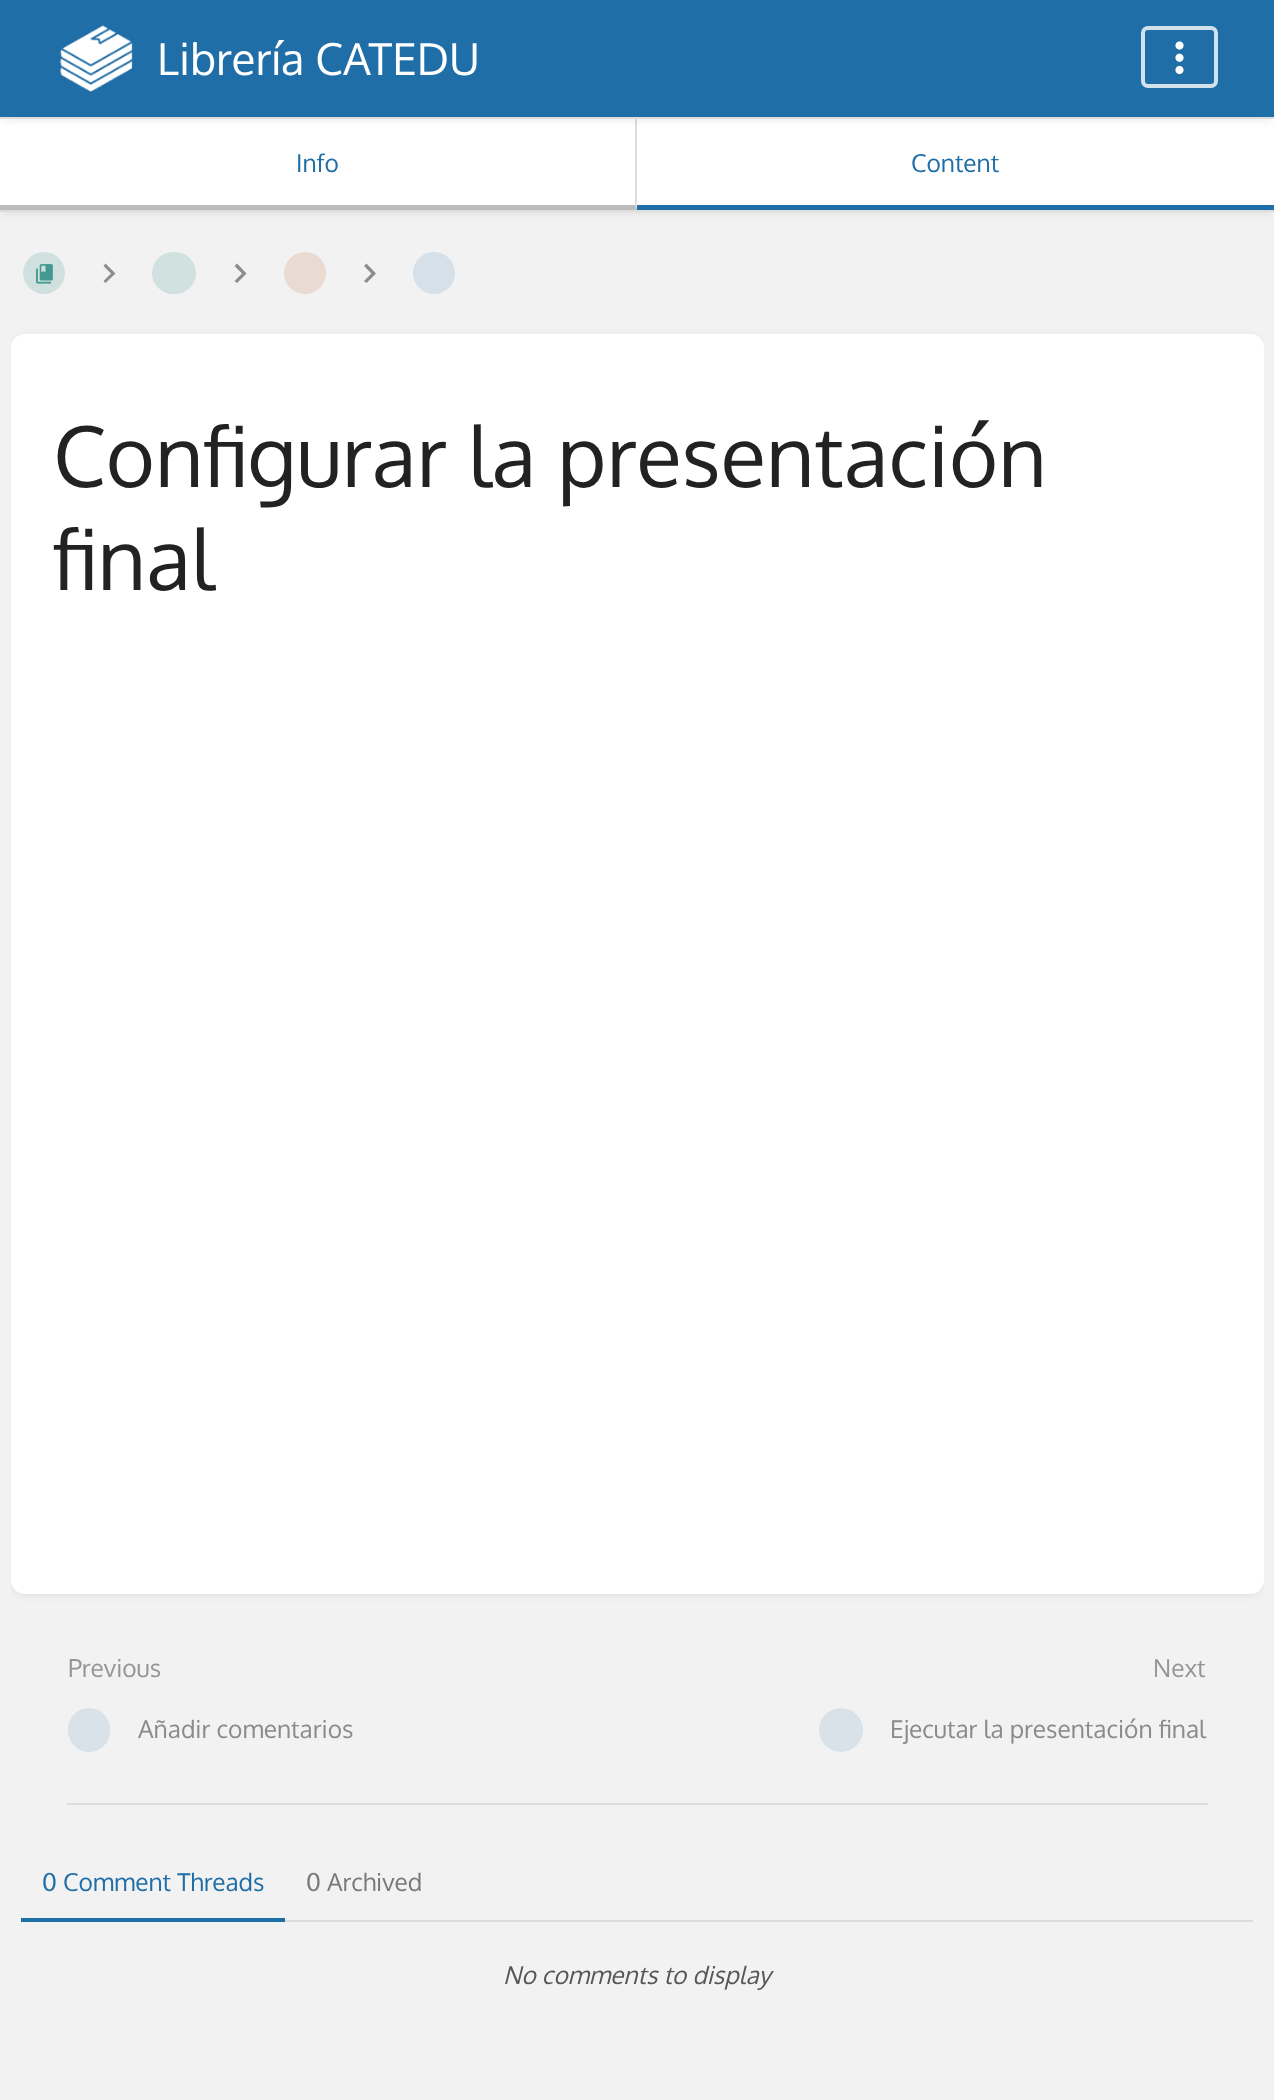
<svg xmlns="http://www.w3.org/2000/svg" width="1274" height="2100">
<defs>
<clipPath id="clip1"><rect x="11" y="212" width="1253" height="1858"/></clipPath>
</defs>
<rect width="100%" height="100%" fill="#f2f2f2"/>
<rect x="2" y="123" width="1270" height="89" fill="#0000001a" filter="blur(5px)"/>
<rect y="119" width="1274" height="91" fill="#fff"/>
<path d="M637 119v91l-2-5v-86z" fill="#ddd"/>
<rect x="2" y="4" width="1270" height="115" fill="#0000001a" filter="blur(5px)"/>
<rect width="1274" height="117" fill="#206ea7"/>
<rect y="117" width="1274" height="2" fill="#ddd"/>
<image x="59" y="25" width="74" height="67" href="media/1.png"/>
<text x="157" y="75" style="font-family:Oxygen;font-size:44px;fill:#fff">Librería CATEDU</text>
<rect x="1143" y="28" width="73" height="58" rx="5" fill="none" stroke="#d2e2ed" stroke-width="4"/>
<image x="1175" y="41" width="9" height="34" href="media/2.png"/>
<rect y="210" width="1274" height="2" fill="#ddd"/>
<path d="M637 210h-637v-5h635z" fill="#bbb"/>
<text x="296" y="172" style="font-family:Oxygen;font-size:24.5px;fill:#206ea7">Info</text>
<rect x="637" y="205" width="637" height="5" fill="#206ea7"/>
<text x="911" y="172" style="font-family:Oxygen;font-size:24.5px;fill:#206ea7">Content</text>
<image x="36" y="264" width="17" height="20" href="media/3.png"/>
<circle cx="44" cy="273" r="21" fill="#077b7024"/>
<path d="M105.5 263.5l-2 2.5l7.5 7.5l-7.5 7.5l2 2l10-9.5z" fill="#8c8c8c"/>
<rect x="152" y="252" width="44" height="42" rx="21" fill="#d1e1e0"/>
<path d="M237 263.5l-2.5 2.5l7.5 7.5l-7.5 7.5l2.5 2l9.5-9.5z" fill="#8c8c8c"/>
<circle cx="305" cy="273" r="21" fill="#e9dbd2"/>
<path d="M366.5 263.5l-2.5 2.5l7.5 7.5l-7.5 7.5l2.5 2l9.5-9.5z" fill="#8c8c8c"/>
<circle cx="434" cy="273" r="21" fill="#d5e0e8"/>
<g clip-path="url(#clip1)">
<rect x="12" y="338" width="1250" height="1256" rx="12" fill="#0000001a" filter="blur(5px)"/>
</g>
<rect x="11" y="334" width="1253" height="1260" rx="14" fill="#fff"/>
<text x="53" y="487" style="font-family:Oxygen;font-size:83.9px;fill:#222">Configurar la presentación</text>
<text x="53" y="590" style="font-family:Oxygen;font-size:83.9px;fill:#222">final</text>
<text x="68" y="1677" style="font-family:Oxygen;font-size:24.5px;fill:#959595">Previous</text>
<rect x="68" y="1708" width="42" height="44" rx="21" fill="#d9e2e9"/>
<text x="138" y="1738" style="font-family:Oxygen;font-size:24.5px;fill:#8a8a8a">Añadir comentarios</text>
<text x="1153" y="1677" style="font-family:Oxygen;font-size:24.5px;fill:#959595">Next</text>
<circle cx="841" cy="1730" r="22" fill="#d9e2e9"/>
<text x="890" y="1738" style="font-family:Oxygen;font-size:24.5px;fill:#8a8a8a">Ejecutar la presentación final</text>
<rect x="67" y="1803" width="1141" height="2" fill="#ddd"/>
<rect x="285" y="1920" width="968" height="2" fill="#ddd"/>
<rect x="21" y="1918" width="264" height="4" fill="#206ea7"/>
<text x="42" y="1891" style="font-family:Oxygen;font-size:24.5px;fill:#206ea7">0 Comment Threads</text>
<text x="306" y="1891" style="font-family:Oxygen;font-size:24.5px;fill:#797979">0 Archived</text>
<text x="503" y="1984" style="font-family:Oxygen;font-size:24.5px;font-style:italic;fill:#575757">No comments to display</text>
</svg>
